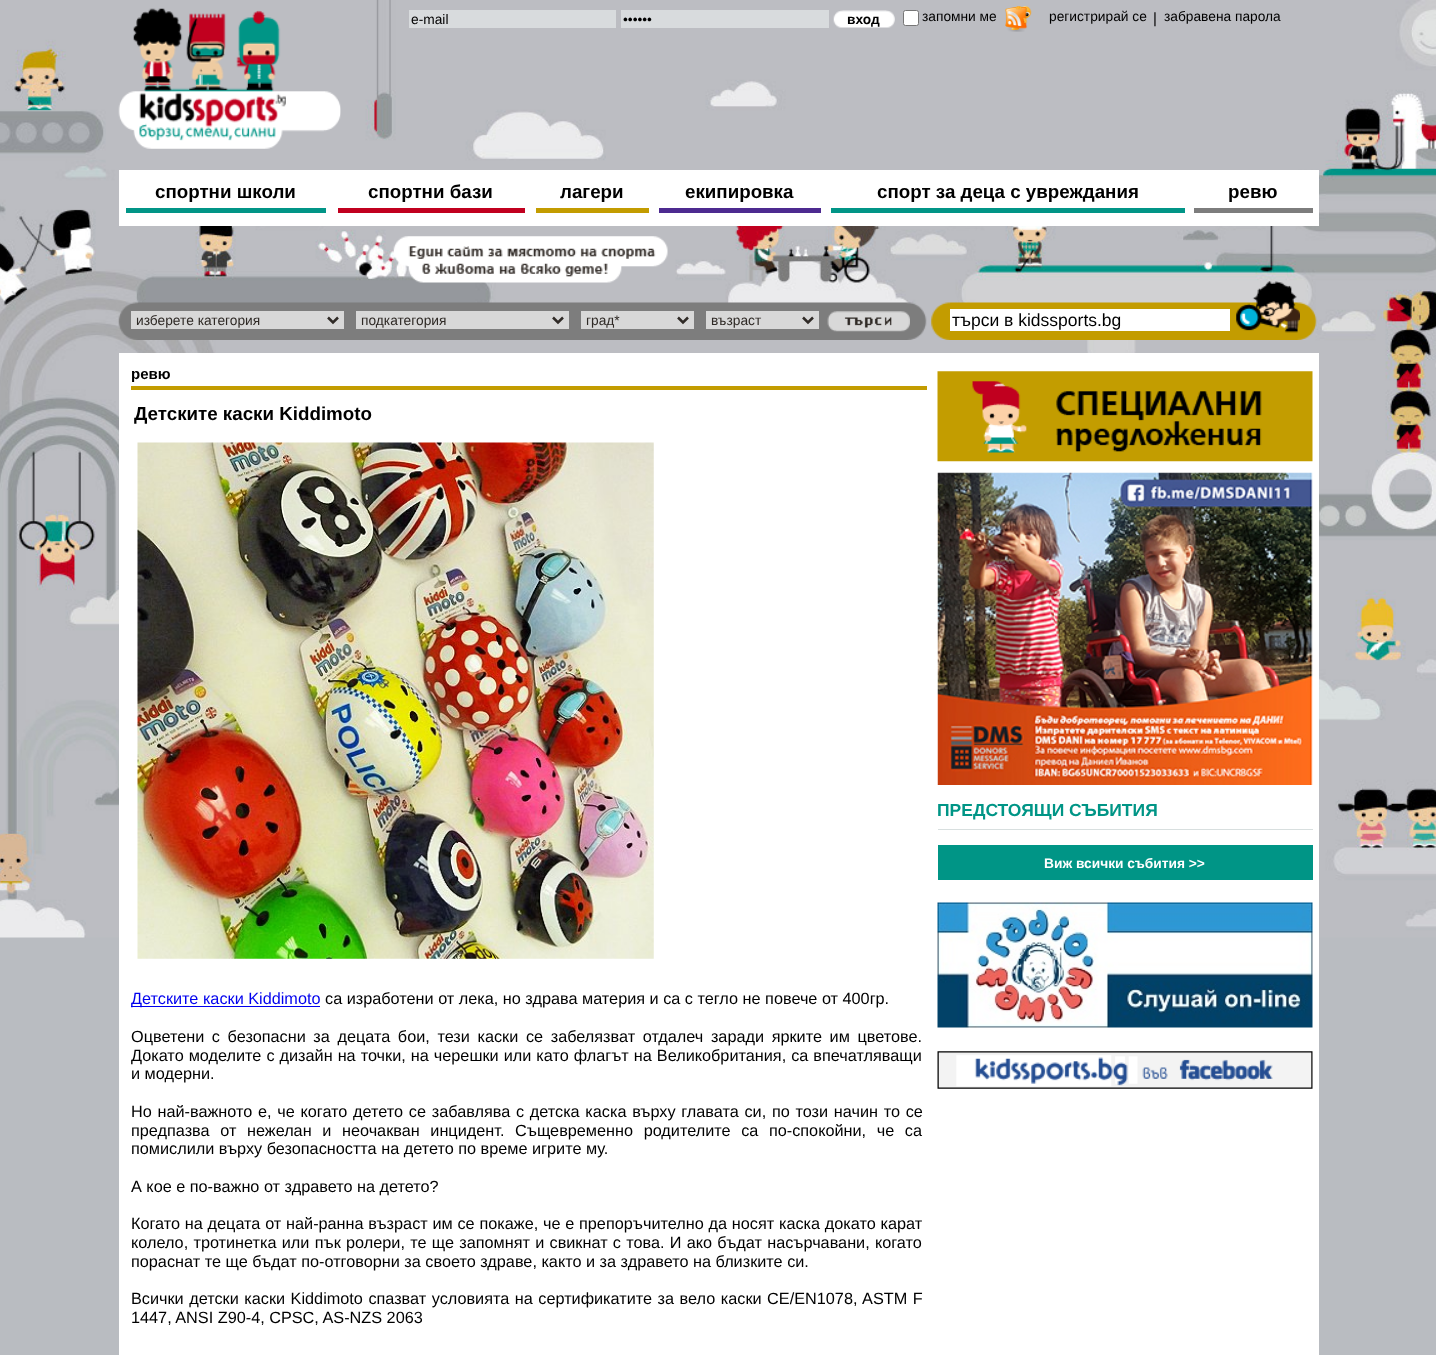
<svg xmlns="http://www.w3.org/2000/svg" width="1436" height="1355">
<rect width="100%" height="100%" fill="#b9bcc1"/>
<image x="0" y="0" width="1436" height="938" href="media/1.png"/>
<image x="118" y="8" width="223" height="141" href="media/2.png"/>
<rect x="409" y="10" width="207" height="18" fill="#d8dbdd"/>
<text x="411" y="24" style="font-family:Liberation Sans;font-size:13.75px;fill:#000">e-mail</text>
<rect x="621" y="10" width="208" height="18" fill="#d8dbdd"/>
<text x="623" y="24" style="font-family:Liberation Sans;font-size:13.75px;fill:#000">••••••</text>
<image x="833" y="10" width="62" height="18" href="media/3.png"/>
<text x="847" y="24" style="font-family:Liberation Sans;font-size:13.75px;font-weight:bold;fill:#000">вход</text>
<rect x="903.5" y="10.5" width="15" height="15" rx="2" fill="#fff" stroke="#767676"/>
<text x="922" y="21" style="font-family:Liberation Sans;font-size:13.75px;fill:#000">запомни ме</text>
<image x="1005" y="6" width="27" height="26" href="media/4.png"/>
<text x="1049" y="21" style="font-family:Liberation Sans;font-size:13.75px;fill:#000">регистрирай се</text>
<text x="1153" y="23" style="font-family:Liberation Sans;font-size:15px;fill:#000">|</text>
<text x="1164" y="21" style="font-family:Liberation Sans;font-size:13.75px;fill:#000">забравена парола</text>
<rect x="119" y="170" width="1200" height="56" fill="#fff"/>
<rect x="126" y="208" width="200" height="5" fill="#019587"/>
<text x="155" y="198" style="font-family:Liberation Sans;font-size:18.75px;font-weight:bold;fill:#000">спортни школи</text>
<rect x="338" y="208" width="187" height="5" fill="#c1001f"/>
<text x="368" y="198" style="font-family:Liberation Sans;font-size:18.75px;font-weight:bold;fill:#000">спортни бази</text>
<rect x="536" y="208" width="113" height="5" fill="#c39c00"/>
<text x="560" y="198" style="font-family:Liberation Sans;font-size:18.75px;font-weight:bold;fill:#000">лагери</text>
<rect x="659" y="208" width="162" height="5" fill="#4d2a90"/>
<text x="685" y="198" style="font-family:Liberation Sans;font-size:18.75px;font-weight:bold;fill:#000">екипировка</text>
<rect x="831" y="208" width="354" height="5" fill="#019587"/>
<text x="877" y="198" style="font-family:Liberation Sans;font-size:18.75px;font-weight:bold;fill:#000">спорт за деца с увреждания</text>
<rect x="1194" y="208" width="119" height="5" fill="#7d7d7d"/>
<text x="1228" y="198" style="font-family:Liberation Sans;font-size:18.75px;font-weight:bold;fill:#000">ревю</text>
<image x="393" y="236" width="275" height="47" href="media/5.png"/>
<image x="118" y="302" width="809" height="38" href="media/6.png"/>
<rect x="131" y="311" width="213" height="18" fill="#d8d8d8"/>
<path d="M328 317.5l5 5l5-5" fill="none" stroke="#2f2a26" stroke-width="2.5"/>
<text x="136" y="325" style="font-family:Liberation Sans;font-size:13.75px;fill:#2f2a26">изберете категория</text>
<rect x="356" y="311" width="213" height="18" fill="#d8d8d8"/>
<path d="M553 317.5l5 5l5-5" fill="none" stroke="#2f2a26" stroke-width="2.5"/>
<text x="361" y="325" style="font-family:Liberation Sans;font-size:13.75px;fill:#2f2a26">подкатегория</text>
<rect x="581" y="311" width="113" height="18" fill="#d8d8d8"/>
<path d="M678 317.5l5 5l5-5" fill="none" stroke="#2f2a26" stroke-width="2.5"/>
<text x="586" y="325" style="font-family:Liberation Sans;font-size:13.75px;fill:#2f2a26">град*</text>
<rect x="706" y="311" width="113" height="18" fill="#d8d8d8"/>
<path d="M803 317.5l5 5l5-5" fill="none" stroke="#2f2a26" stroke-width="2.5"/>
<text x="711" y="325" style="font-family:Liberation Sans;font-size:13.75px;fill:#2f2a26">възраст</text>
<image x="827" y="311" width="83" height="21" href="media/7.png"/>
<image x="931" y="302" width="386" height="38" href="media/8.png"/>
<rect x="950" y="309" width="280" height="22" fill="#fff"/>
<text x="952" y="326" style="font-family:Liberation Sans;font-size:17.5px;fill:#000">търси в kidssports.bg</text>
<image x="1236" y="281" width="64" height="52" href="media/9.png"/>
<rect x="119" y="353" width="1200" height="1002" fill="#fff"/>
<text x="131" y="379" style="font-family:Liberation Sans;font-size:15px;font-weight:bold;fill:#000">ревю</text>
<rect x="131" y="386" width="796" height="4" fill="#c39c00"/>
<text x="134" y="420" style="font-family:Liberation Sans;font-size:18.75px;font-weight:bold;fill:#000">Детските каски Kiddimoto</text>
<image x="137" y="442" width="517" height="517" href="media/10.png"/>
<rect x="131" y="1006" width="189" height="1" fill="#00e"/>
<text x="131" y="1004" style="font-family:Liberation Sans;font-size:16.25px;fill:#00e">Детските каски Kiddimoto</text>
<text x="325" y="1004" style="font-family:Liberation Sans;font-size:16.25px;fill:#000">са изработени от лека, но здрава материя и са с тегло не повече от 400гр.</text>
<text x="131" y="1042" word-spacing="3.1" style="font-family:Liberation Sans;font-size:16.25px;fill:#000">Оцветени с безопасни за децата бои, тези каски се забелязват отдалеч заради ярките им цветове.</text>
<text x="131" y="1061" word-spacing="0.5" style="font-family:Liberation Sans;font-size:16.25px;fill:#000">Докато моделите с дизайн на точки, на черешки или като флагът на Великобритания, са впечатляващи</text>
<text x="131" y="1079" style="font-family:Liberation Sans;font-size:16.25px;fill:#000">и модерни.</text>
<text x="131" y="1117" word-spacing="1.2" style="font-family:Liberation Sans;font-size:16.25px;fill:#000">Но най-важното е, че когато детето се забавлява с детска каска върху главата си, по този начин то се</text>
<text x="131" y="1136" word-spacing="6.1" style="font-family:Liberation Sans;font-size:16.25px;fill:#000">предпазва от нежелан и неочакван инцидент. Същевременно родителите са по-спокойни, че са</text>
<text x="131" y="1154" style="font-family:Liberation Sans;font-size:16.25px;fill:#000">помислили върху безопасността на детето по време игрите му.</text>
<text x="131" y="1192" style="font-family:Liberation Sans;font-size:16.25px;fill:#000">А кое е по-важно от здравето на детето?</text>
<text x="131" y="1229" word-spacing="0.25" style="font-family:Liberation Sans;font-size:16.25px;fill:#000">Когато на децата от най-ранна възраст им се покаже, че е препоръчително да носят каска докато карат</text>
<text x="131" y="1248" word-spacing="0.75" style="font-family:Liberation Sans;font-size:16.25px;fill:#000">колело, тротинетка или пък ролери, те ще запомнят и свикнат с това. И ако бъдат насърчавани, когато</text>
<text x="131" y="1267" style="font-family:Liberation Sans;font-size:16.25px;fill:#000">пораснат те ще бъдат по-отговорни за своето здраве, както и за здравето на близките си.</text>
<text x="131" y="1304" word-spacing="1" style="font-family:Liberation Sans;font-size:16.25px;fill:#000">Всички детски каски Kiddimoto спазват условията на сертификатите за вело каски CE/EN1078, ASTM F</text>
<text x="131" y="1323" style="font-family:Liberation Sans;font-size:16.25px;fill:#000">1447, ANSI Z90-4, CPSC, AS-NZS 2063</text>
<image x="937" y="371" width="376" height="91" href="media/11.png"/>
<image x="937" y="472" width="376" height="313" href="media/12.png"/>
<rect x="938" y="829" width="375" height="1" fill="#d8dfdf"/>
<text x="937" y="816" style="font-family:Liberation Sans;font-size:17.5px;font-weight:bold;fill:#009586">ПРЕДСТОЯЩИ СЪБИТИЯ</text>
<rect x="938" y="845" width="375" height="35" fill="#009586"/>
<text x="1044" y="868" style="font-family:Liberation Sans;font-size:13.75px;font-weight:bold;fill:#fff">Виж всички събития &gt;&gt;</text>
<image x="937" y="902" width="376" height="126" href="media/13.png"/>
<image x="937" y="1051" width="376" height="38" href="media/14.png"/>
</svg>
